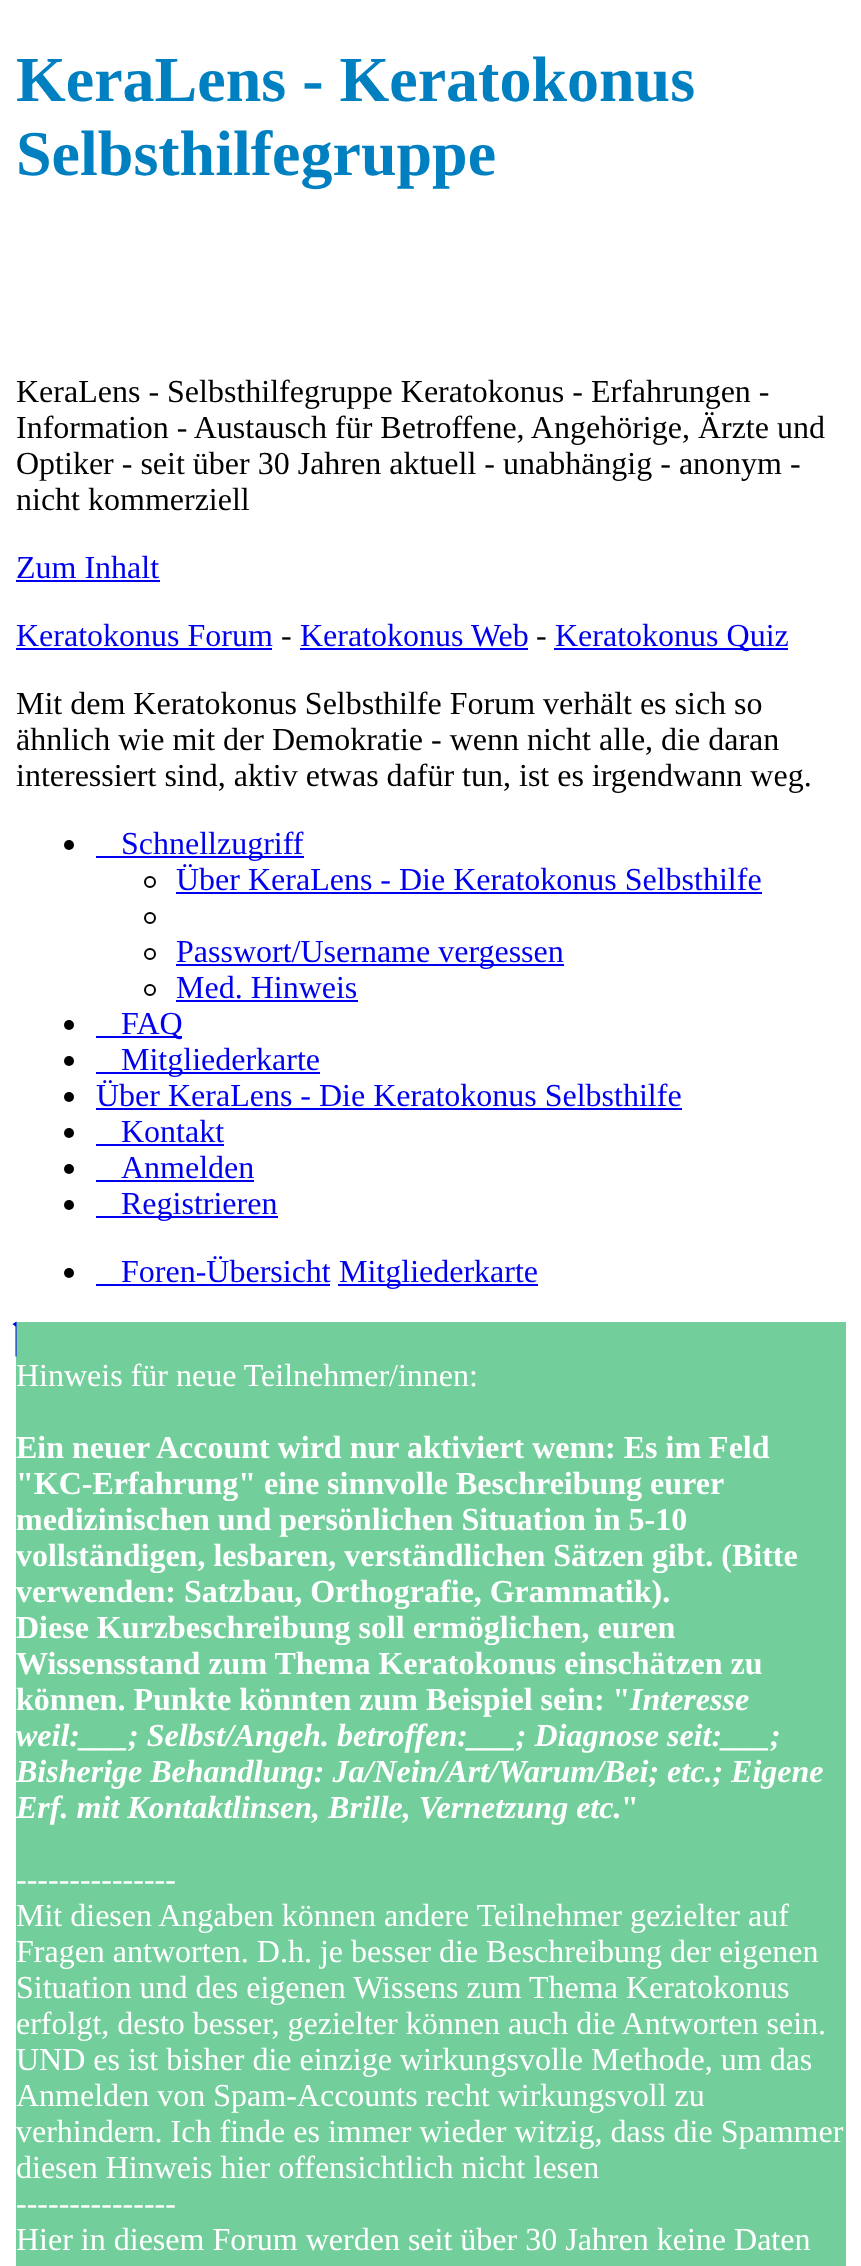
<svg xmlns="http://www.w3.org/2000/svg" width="861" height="2266">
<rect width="100%" height="100%" fill="#fff"/>
<text x="16" y="101" style="font-family:Liberation Serif;font-size:64px;font-weight:bold;fill:#0080c0">KeraLens - Keratokonus</text>
<text x="16" y="175" style="font-family:Liberation Serif;font-size:64px;font-weight:bold;fill:#0080c0">Selbsthilfegruppe</text>
<text x="16" y="402" style="font-family:Liberation Serif;font-size:32px;fill:#000">KeraLens - Selbsthilfegruppe Keratokonus - Erfahrungen -</text>
<text x="16" y="438" style="font-family:Liberation Serif;font-size:32px;fill:#000">Information - Austausch für Betroffene, Angehörige, Ärzte und</text>
<text x="16" y="474" style="font-family:Liberation Serif;font-size:32px;fill:#000">Optiker - seit über 30 Jahren aktuell - unabhängig - anonym -</text>
<text x="16" y="510" style="font-family:Liberation Serif;font-size:32px;fill:#000">nicht kommerziell</text>
<text x="16" y="578" style="font-family:Liberation Serif;font-size:32px;fill:#00e">Zum Inhalt</text>
<rect x="16" y="580" width="144" height="2" fill="#00e"/>
<text x="16" y="646" style="font-family:Liberation Serif;font-size:32px;fill:#00e">Keratokonus Forum</text>
<rect x="16" y="648" width="256" height="2" fill="#00e"/>
<text x="281" y="646" style="font-family:Liberation Serif;font-size:32px;fill:#000">-</text>
<text x="300" y="646" style="font-family:Liberation Serif;font-size:32px;fill:#00e">Keratokonus Web</text>
<rect x="300" y="648" width="228" height="2" fill="#00e"/>
<text x="536" y="646" style="font-family:Liberation Serif;font-size:32px;fill:#000">-</text>
<rect x="554" y="648" width="234" height="2" fill="#00e"/>
<text x="555" y="646" style="font-family:Liberation Serif;font-size:32px;fill:#00e">Keratokonus Quiz</text>
<text x="16" y="714" style="font-family:Liberation Serif;font-size:32px;fill:#000">Mit dem Keratokonus Selbsthilfe Forum verhält es sich so</text>
<text x="16" y="750" style="font-family:Liberation Serif;font-size:32px;fill:#000">ähnlich wie mit der Demokratie - wenn nicht alle, die daran</text>
<text x="16" y="786" style="font-family:Liberation Serif;font-size:32px;fill:#000">interessiert sind, aktiv etwas dafür tun, ist es irgendwann weg.</text>
<circle cx="69" cy="845" r="5" fill="#000"/>
<rect x="96" y="856" width="208" height="2" fill="#00e"/>
<text x="121" y="854" style="font-family:Liberation Serif;font-size:32px;fill:#00e">Schnellzugriff</text>
<circle cx="150" cy="882" r="5" fill="none" stroke="#000" stroke-width="2"/>
<text x="176" y="890" style="font-family:Liberation Serif;font-size:32px;fill:#00e">Über KeraLens - Die Keratokonus Selbsthilfe</text>
<rect x="176" y="892" width="586" height="2" fill="#00e"/>
<circle cx="150" cy="918" r="5" fill="none" stroke="#000" stroke-width="2"/>
<circle cx="150" cy="954" r="5" fill="none" stroke="#000" stroke-width="2"/>
<rect x="176" y="964" width="388" height="2" fill="#00e"/>
<text x="176" y="962" style="font-family:Liberation Serif;font-size:32px;fill:#00e">Passwort/Username vergessen</text>
<circle cx="150" cy="990" r="5" fill="none" stroke="#000" stroke-width="2"/>
<text x="176" y="998" style="font-family:Liberation Serif;font-size:32px;fill:#00e">Med. Hinweis</text>
<rect x="176" y="1000" width="182" height="2" fill="#00e"/>
<circle cx="69" cy="1025" r="5" fill="#000"/>
<rect x="96" y="1036" width="86" height="2" fill="#00e"/>
<text x="121" y="1034" style="font-family:Liberation Serif;font-size:32px;fill:#00e">FAQ</text>
<circle cx="69" cy="1061" r="5" fill="#000"/>
<rect x="96" y="1072" width="224" height="2" fill="#00e"/>
<text x="121" y="1070" style="font-family:Liberation Serif;font-size:32px;fill:#00e">Mitgliederkarte</text>
<circle cx="69" cy="1097" r="5" fill="#000"/>
<text x="96" y="1106" style="font-family:Liberation Serif;font-size:32px;fill:#00e">Über KeraLens - Die Keratokonus Selbsthilfe</text>
<rect x="96" y="1108" width="586" height="2" fill="#00e"/>
<circle cx="69" cy="1133" r="5" fill="#000"/>
<text x="121" y="1142" style="font-family:Liberation Serif;font-size:32px;fill:#00e">Kontakt</text>
<rect x="96" y="1144" width="128" height="2" fill="#00e"/>
<circle cx="69" cy="1169" r="5" fill="#000"/>
<text x="121" y="1178" style="font-family:Liberation Serif;font-size:32px;fill:#00e">Anmelden</text>
<rect x="96" y="1180" width="158" height="2" fill="#00e"/>
<circle cx="69" cy="1205" r="5" fill="#000"/>
<rect x="96" y="1216" width="182" height="2" fill="#00e"/>
<text x="121" y="1214" style="font-family:Liberation Serif;font-size:32px;fill:#00e">Registrieren</text>
<circle cx="69" cy="1273" r="5" fill="#000"/>
<text x="121" y="1282" style="font-family:Liberation Serif;font-size:32px;fill:#00e">Foren-Übersicht</text>
<rect x="96" y="1284" width="234" height="2" fill="#00e"/>
<rect x="338" y="1284" width="200" height="2" fill="#00e"/>
<text x="339" y="1282" style="font-family:Liberation Serif;font-size:32px;fill:#00e">Mitgliederkarte</text>
<rect x="16" y="1322" width="830" height="944" fill="#72cf9b"/>
<path d="M16.5 1321.5v35h-1v-30l-3-2.5z" fill="#00e"/>
<text x="16" y="1386" style="font-family:Liberation Serif;font-size:32px;fill:#fff">Hinweis für neue Teilnehmer/innen:</text>
<text x="16" y="1458" style="font-family:Liberation Serif;font-size:32px;font-weight:bold;fill:#fff">Ein neuer Account wird nur aktiviert wenn: Es im Feld</text>
<text x="16" y="1494" style="font-family:Liberation Serif;font-size:32px;font-weight:bold;fill:#fff">"KC-Erfahrung" eine sinnvolle Beschreibung eurer</text>
<text x="16" y="1530" style="font-family:Liberation Serif;font-size:32px;font-weight:bold;fill:#fff">medizinischen und persönlichen Situation in 5-10</text>
<text x="16" y="1566" style="font-family:Liberation Serif;font-size:32px;font-weight:bold;fill:#fff">vollständigen, lesbaren, verständlichen Sätzen gibt. (Bitte</text>
<text x="16" y="1602" style="font-family:Liberation Serif;font-size:32px;font-weight:bold;fill:#fff">verwenden: Satzbau, Orthografie, Grammatik).</text>
<text x="16" y="1638" style="font-family:Liberation Serif;font-size:32px;font-weight:bold;fill:#fff">Diese Kurzbeschreibung soll ermöglichen, euren</text>
<text x="16" y="1674" style="font-family:Liberation Serif;font-size:32px;font-weight:bold;fill:#fff">Wissensstand zum Thema Keratokonus einschätzen zu</text>
<text x="16" y="1710" style="font-family:Liberation Serif;font-size:32px;font-weight:bold;fill:#fff">können. Punkte könnten zum Beispiel sein: "</text>
<text x="630" y="1710" style="font-family:Liberation Serif;font-size:32px;font-weight:bold;font-style:italic;fill:#fff">Interesse</text>
<text x="16" y="1746" style="font-family:Liberation Serif;font-size:32px;font-weight:bold;font-style:italic;fill:#fff">weil:___; Selbst/Angeh. betroffen:___; Diagnose seit:___;</text>
<text x="16" y="1782" style="font-family:Liberation Serif;font-size:32px;font-weight:bold;font-style:italic;fill:#fff">Bisherige Behandlung: Ja/Nein/Art/Warum/Bei; etc.; Eigene</text>
<text x="16" y="1818" style="font-family:Liberation Serif;font-size:32px;font-weight:bold;font-style:italic;fill:#fff">Erf. mit Kontaktlinsen, Brille, Vernetzung etc.</text>
<text x="621" y="1818" style="font-family:Liberation Serif;font-size:32px;font-weight:bold;fill:#fff">"</text>
<text x="16" y="1890" style="font-family:Liberation Serif;font-size:32px;fill:#fff">---------------</text>
<text x="16" y="1926" style="font-family:Liberation Serif;font-size:32px;fill:#fff">Mit diesen Angaben können andere Teilnehmer gezielter auf</text>
<text x="16" y="1962" style="font-family:Liberation Serif;font-size:32px;fill:#fff">Fragen antworten. D.h. je besser die Beschreibung der eigenen</text>
<text x="16" y="1998" style="font-family:Liberation Serif;font-size:32px;fill:#fff">Situation und des eigenen Wissens zum Thema Keratokonus</text>
<text x="16" y="2034" style="font-family:Liberation Serif;font-size:32px;fill:#fff">erfolgt, desto besser, gezielter können auch die Antworten sein.</text>
<text x="16" y="2070" style="font-family:Liberation Serif;font-size:32px;fill:#fff">UND es ist bisher die einzige wirkungsvolle Methode, um das</text>
<text x="16" y="2106" style="font-family:Liberation Serif;font-size:32px;fill:#fff">Anmelden von Spam-Accounts recht wirkungsvoll zu</text>
<text x="16" y="2142" style="font-family:Liberation Serif;font-size:32px;fill:#fff">verhindern. Ich finde es immer wieder witzig, dass die Spammer</text>
<text x="16" y="2178" style="font-family:Liberation Serif;font-size:32px;fill:#fff">diesen Hinweis hier offensichtlich nicht lesen</text>
<text x="16" y="2214" style="font-family:Liberation Serif;font-size:32px;fill:#fff">---------------</text>
<text x="16" y="2250" style="font-family:Liberation Serif;font-size:32px;fill:#fff">Hier in diesem Forum werden seit über 30 Jahren keine Daten</text>
</svg>
